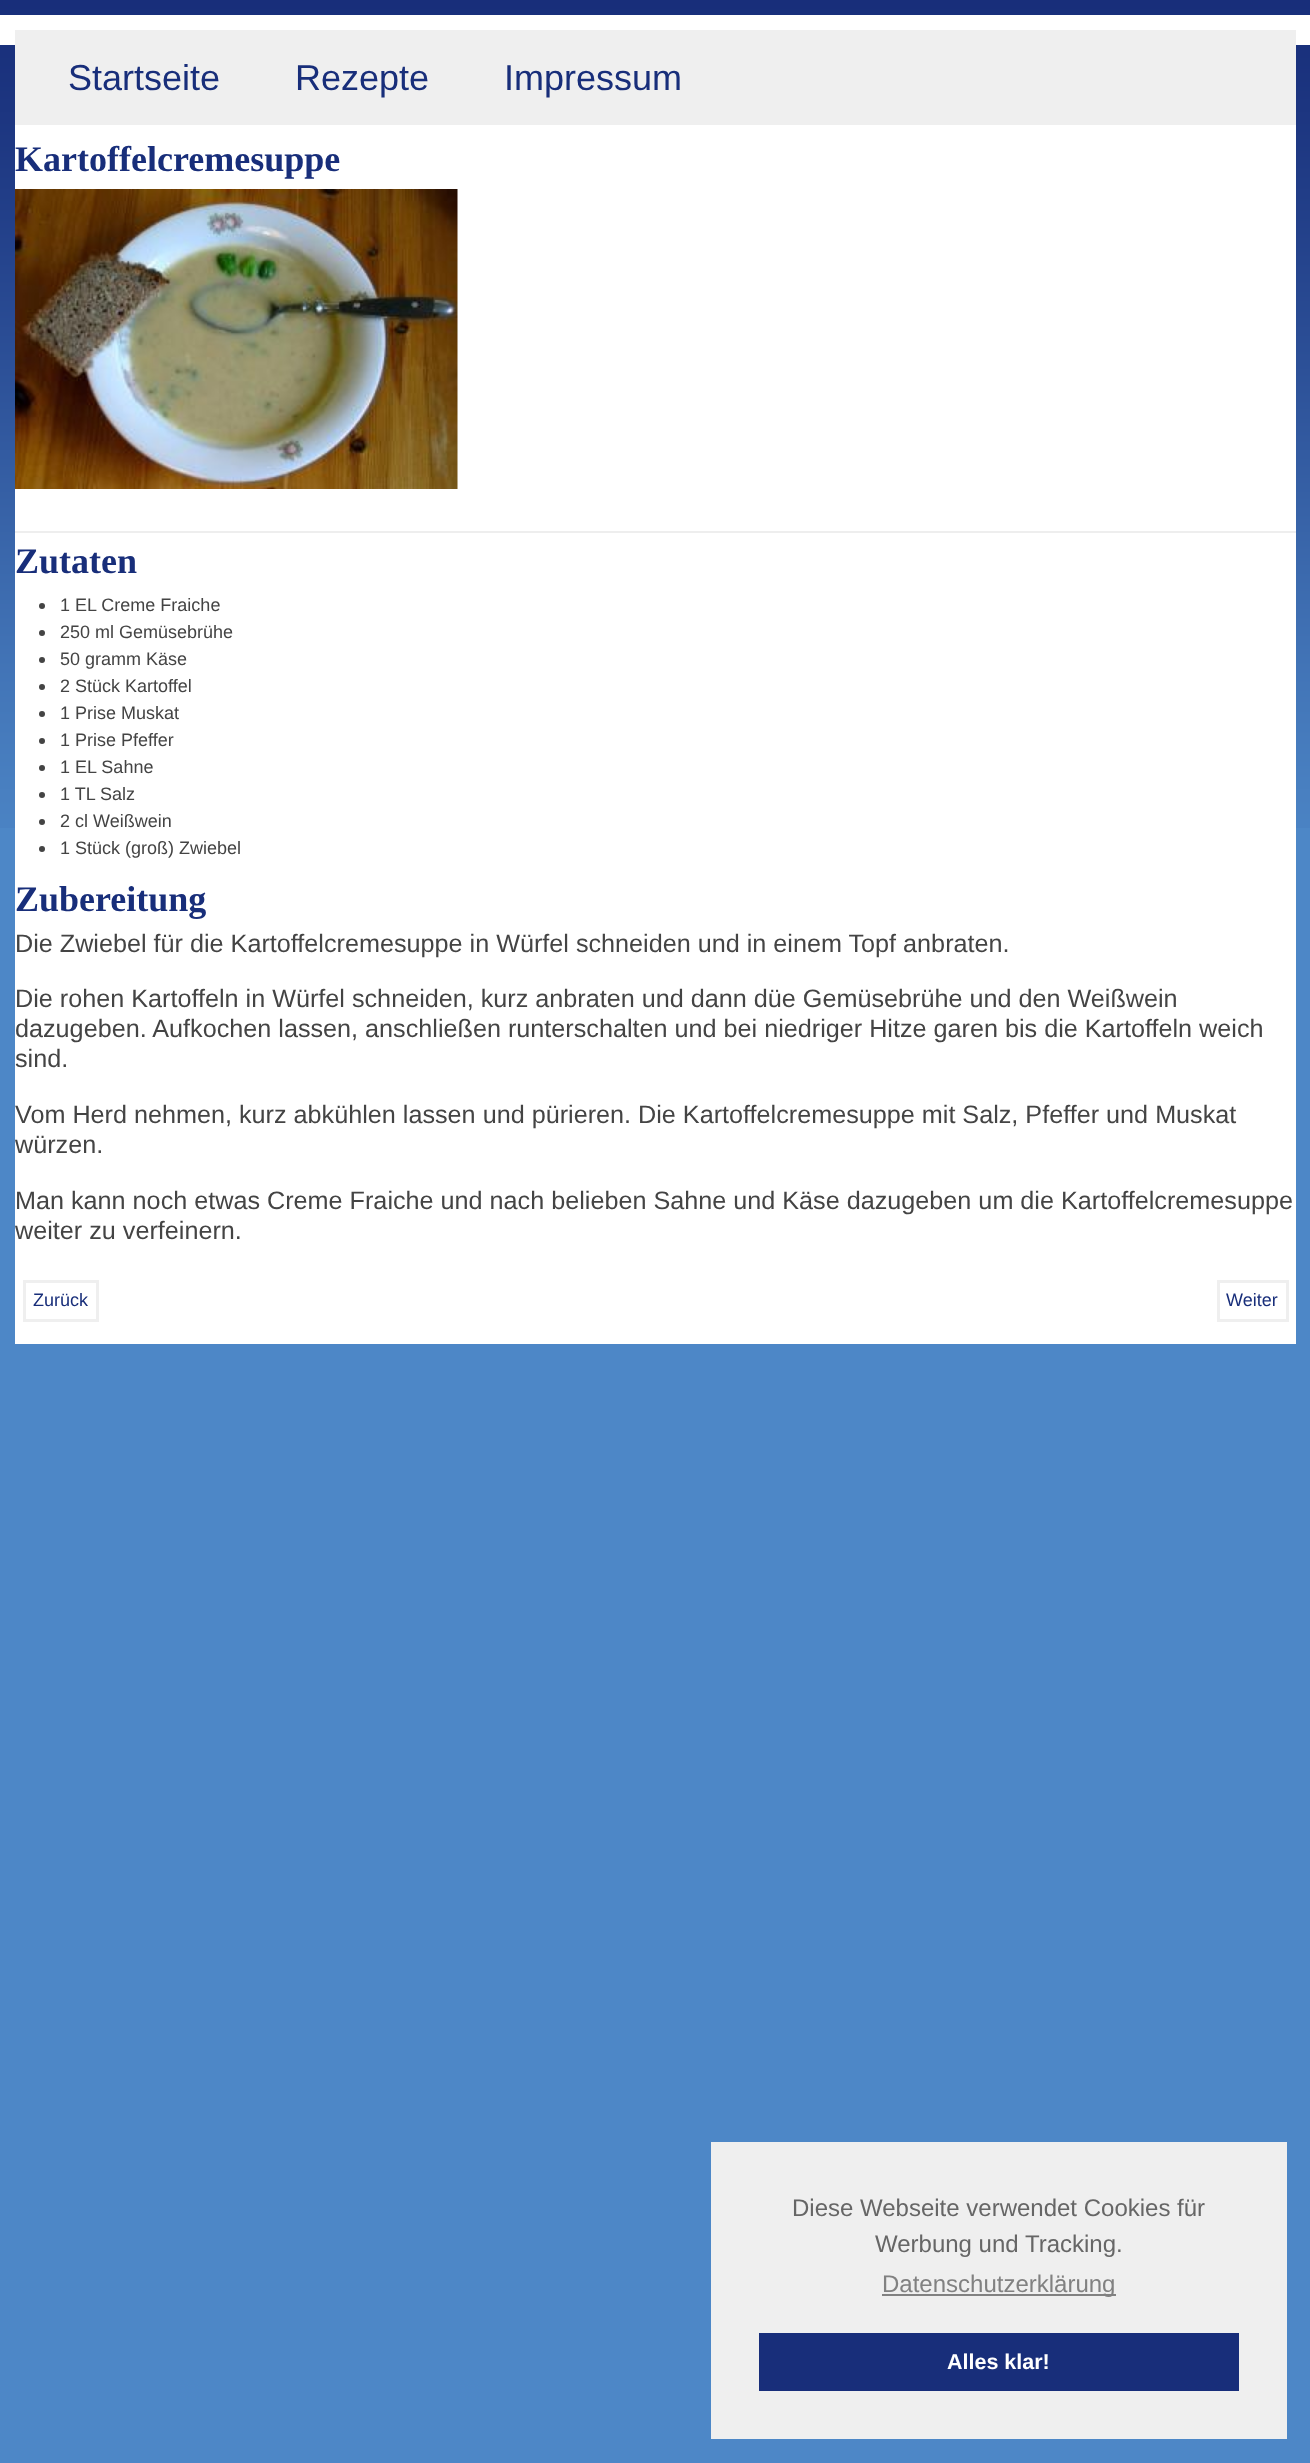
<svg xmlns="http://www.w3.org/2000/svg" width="1310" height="2463">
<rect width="100%" height="100%" fill="#4d87c7"/>
<image x="0" y="0" width="1310" height="828" href="media/1.png"/>
<rect y="15" width="1310" height="30" fill="#fff"/>
<rect x="15" y="30" width="1281" height="95" fill="#efefef"/>
<text x="68" y="90" style="font-family:Liberation Sans;font-size:36px;fill:#182e7a">Startseite</text>
<text x="295" y="90" style="font-family:Liberation Sans;font-size:36px;fill:#182e7a">Rezepte</text>
<text x="504" y="90" style="font-family:Liberation Sans;font-size:36px;fill:#182e7a">Impressum</text>
<rect x="15" y="125" width="1281" height="1219" fill="#fff"/>
<text x="15" y="171" style="font-family:Liberation Serif;font-size:36px;font-weight:bold;fill:#182e7a">Kartoffelcremesuppe</text>
<image x="15" y="189" width="443" height="300" href="media/2.png"/>
<rect x="15" y="531" width="1281" height="2" fill="#eee"/>
<text x="15" y="573" style="font-family:Liberation Serif;font-size:36px;font-weight:bold;fill:#182e7a">Zutaten</text>
<circle cx="42" cy="606" r="3" fill="#444"/>
<text x="60" y="611" style="font-family:Liberation Sans;font-size:18px;fill:#444">1 EL Creme Fraiche</text>
<circle cx="42" cy="633" r="3" fill="#444"/>
<text x="60" y="638" style="font-family:Liberation Sans;font-size:18px;fill:#444">250 ml Gemüsebrühe</text>
<circle cx="42" cy="660" r="3" fill="#444"/>
<text x="60" y="665" style="font-family:Liberation Sans;font-size:18px;fill:#444">50 gramm Käse</text>
<circle cx="42" cy="687" r="3" fill="#444"/>
<text x="60" y="692" style="font-family:Liberation Sans;font-size:18px;fill:#444">2 Stück Kartoffel</text>
<circle cx="42" cy="714" r="3" fill="#444"/>
<text x="60" y="719" style="font-family:Liberation Sans;font-size:18px;fill:#444">1 Prise Muskat</text>
<circle cx="42" cy="741" r="3" fill="#444"/>
<text x="60" y="746" style="font-family:Liberation Sans;font-size:18px;fill:#444">1 Prise Pfeffer</text>
<circle cx="42" cy="768" r="3" fill="#444"/>
<text x="60" y="773" style="font-family:Liberation Sans;font-size:18px;fill:#444">1 EL Sahne</text>
<circle cx="42" cy="795" r="3" fill="#444"/>
<text x="60" y="800" style="font-family:Liberation Sans;font-size:18px;fill:#444">1 TL Salz</text>
<circle cx="42" cy="822" r="3" fill="#444"/>
<text x="60" y="827" style="font-family:Liberation Sans;font-size:18px;fill:#444">2 cl Weißwein</text>
<circle cx="42" cy="849" r="3" fill="#444"/>
<text x="60" y="854" style="font-family:Liberation Sans;font-size:18px;fill:#444">1 Stück (groß) Zwiebel</text>
<text x="15" y="911" style="font-family:Liberation Serif;font-size:36px;font-weight:bold;fill:#182e7a">Zubereitung</text>
<text x="15" y="952" style="font-family:Liberation Sans;font-size:25.2px;fill:#444">Die Zwiebel für die Kartoffelcremesuppe in Würfel schneiden und in einem Topf anbraten.</text>
<text x="15" y="1007" style="font-family:Liberation Sans;font-size:25.2px;fill:#444">Die rohen Kartoffeln in Würfel schneiden, kurz anbraten und dann düe Gemüsebrühe und den Weißwein</text>
<text x="15" y="1037" style="font-family:Liberation Sans;font-size:25.2px;fill:#444">dazugeben. Aufkochen lassen, anschließen runterschalten und bei niedriger Hitze garen bis die Kartoffeln weich</text>
<text x="15" y="1067" style="font-family:Liberation Sans;font-size:25.2px;fill:#444">sind.</text>
<text x="15" y="1123" style="font-family:Liberation Sans;font-size:25.2px;fill:#444">Vom Herd nehmen, kurz abkühlen lassen und pürieren. Die Kartoffelcremesuppe mit Salz, Pfeffer und Muskat</text>
<text x="15" y="1153" style="font-family:Liberation Sans;font-size:25.2px;fill:#444">würzen.</text>
<text x="15" y="1209" style="font-family:Liberation Sans;font-size:25.2px;fill:#444">Man kann noch etwas Creme Fraiche und nach belieben Sahne und Käse dazugeben um die Kartoffelcremesuppe</text>
<text x="15" y="1239" style="font-family:Liberation Sans;font-size:25.2px;fill:#444">weiter zu verfeinern.</text>
<rect x="24.5" y="1281.5" width="73" height="39" fill="none" stroke="#efefef" stroke-width="3"/>
<text x="33" y="1306" style="font-family:Liberation Sans;font-size:18px;fill:#182e7a">Zurück</text>
<rect x="1218.5" y="1281.5" width="69" height="39" fill="none" stroke="#efefef" stroke-width="3"/>
<text x="1226" y="1306" style="font-family:Liberation Sans;font-size:18px;fill:#182e7a">Weiter</text>
<rect x="711" y="2142" width="576" height="297" fill="#efefef"/>
<text x="792" y="2216" style="font-family:Liberation Sans;font-size:24px;fill:#666">Diese Webseite verwendet Cookies für</text>
<text x="875" y="2252" style="font-family:Liberation Sans;font-size:24px;fill:#666">Werbung und Tracking.</text>
<rect x="882" y="2294" width="234" height="2" fill="#818181"/>
<text x="882" y="2292" style="font-family:Liberation Sans;font-size:24px;fill:#818181">Datenschutzerklärung</text>
<rect x="759" y="2333" width="480" height="58" fill="#182e7a"/>
<text x="947" y="2369" style="font-family:Liberation Sans;font-size:21.5px;font-weight:bold;fill:#fff">Alles klar!</text>
</svg>
